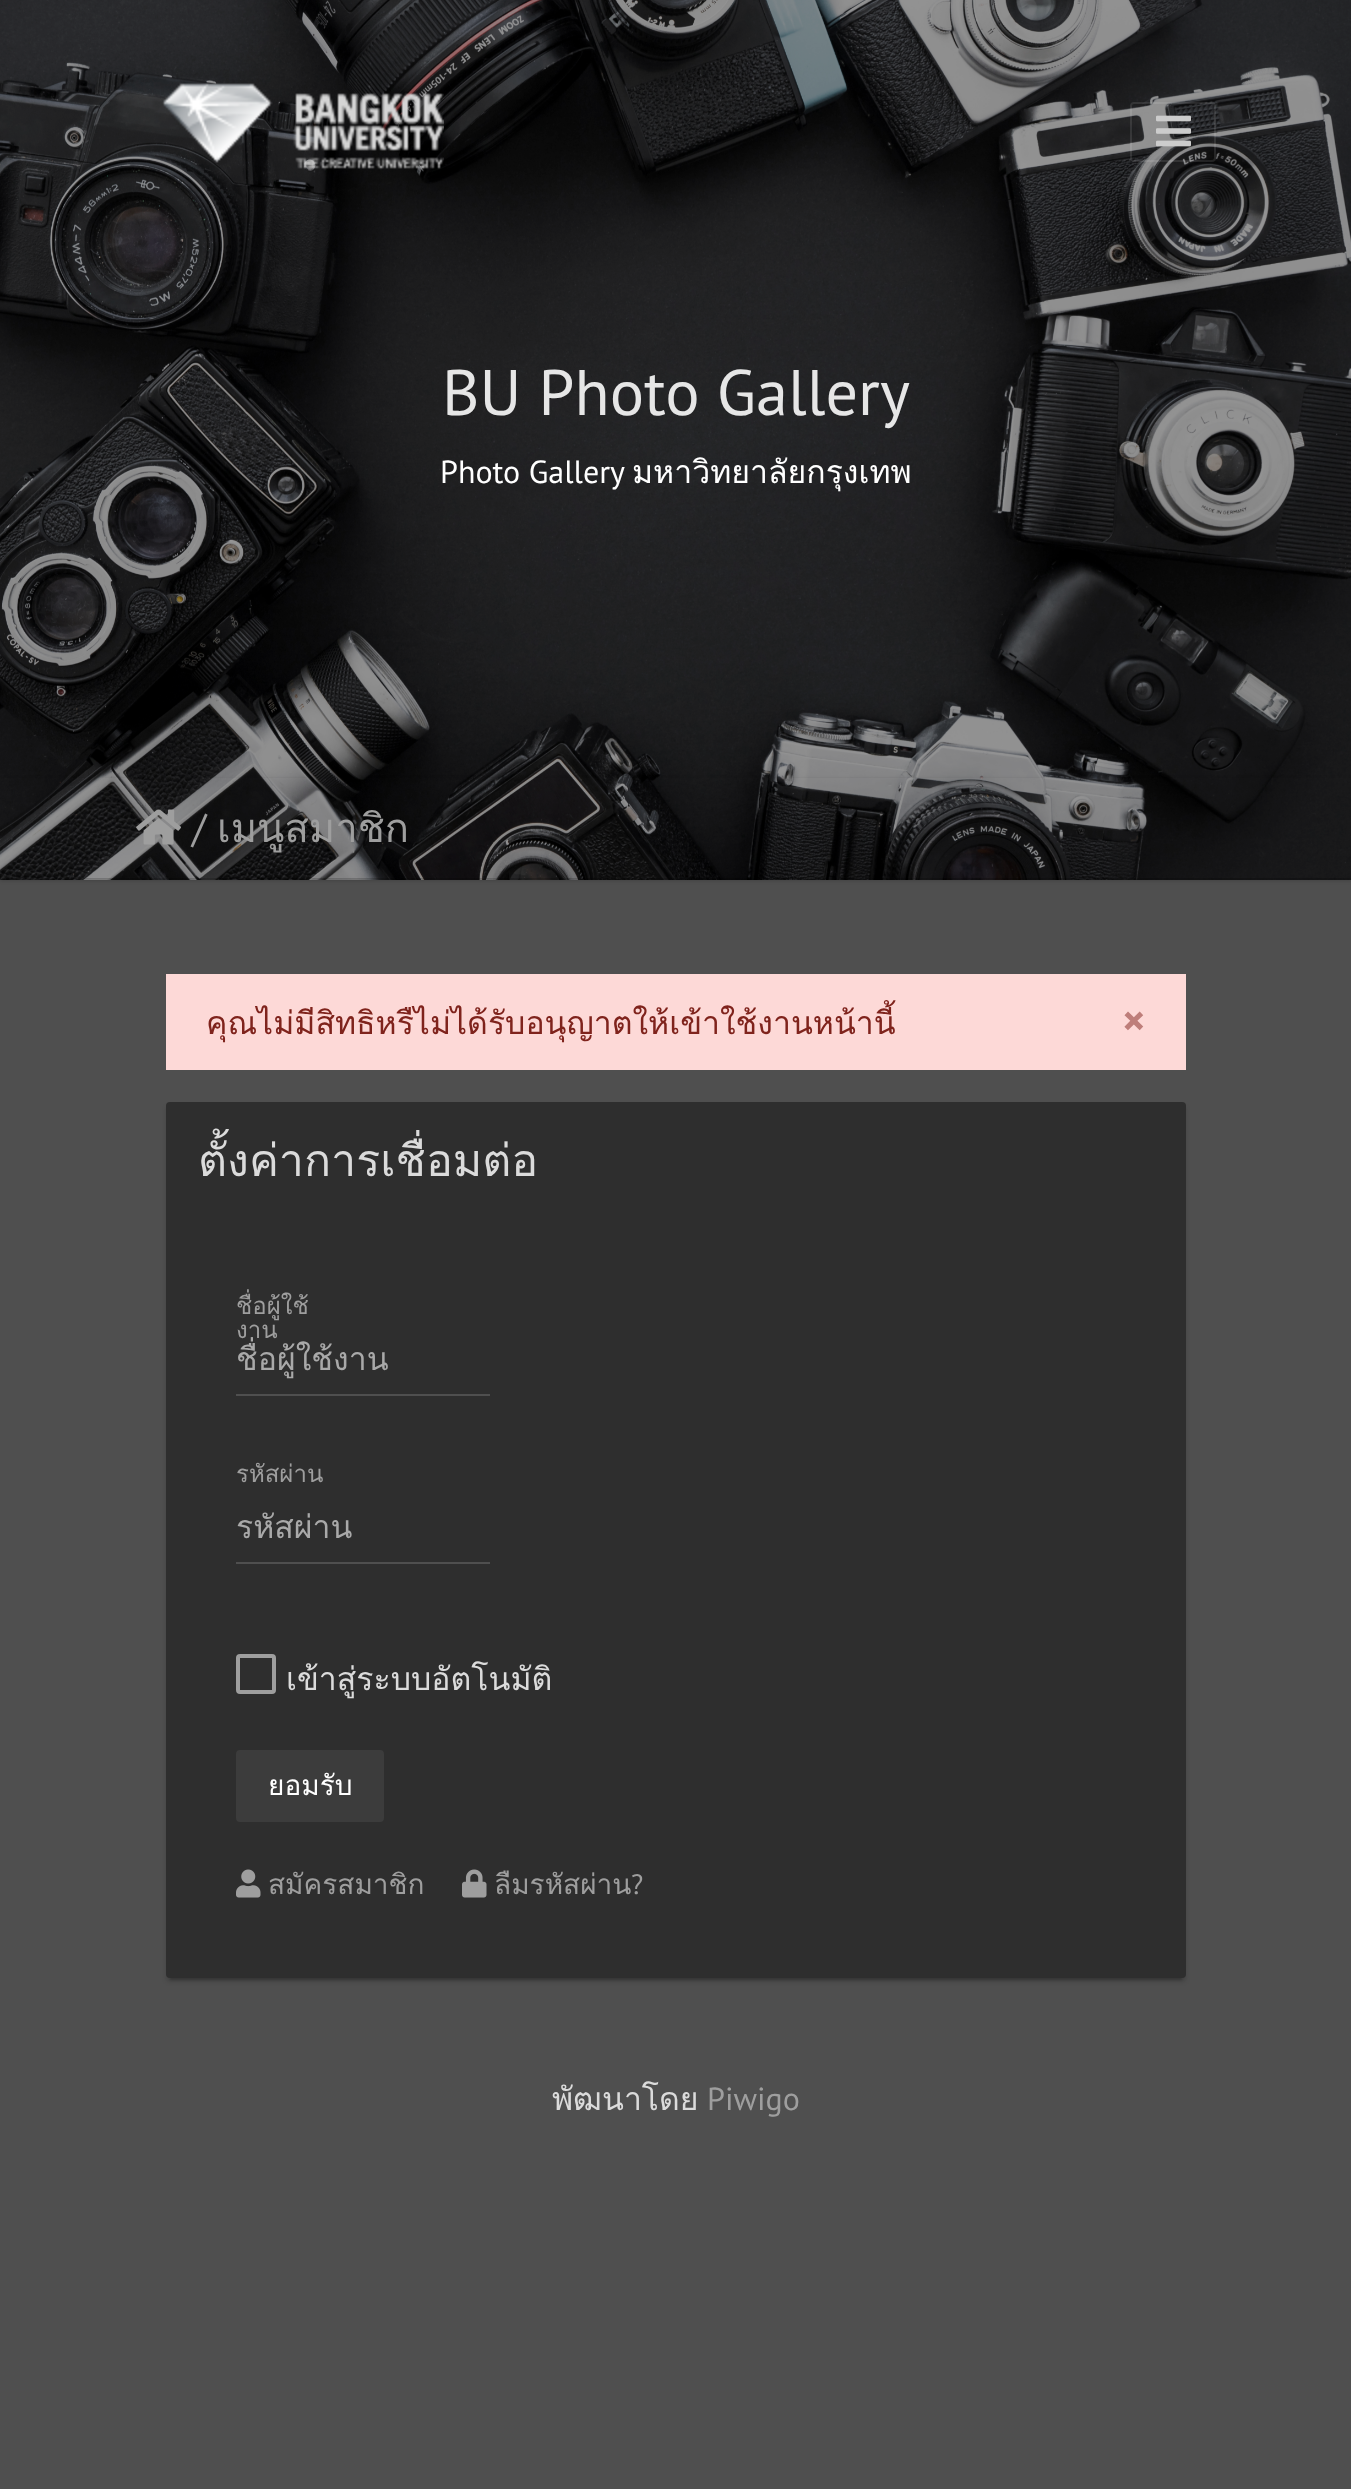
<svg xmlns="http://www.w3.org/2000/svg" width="1351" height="2489">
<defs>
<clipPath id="clip1"><path d="M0 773h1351v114h-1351zm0 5h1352v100h-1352z" clip-rule="evenodd"/></clipPath>
<clipPath id="clip2"><rect x="236" y="1324" width="254" height="68"/></clipPath>
</defs>
<rect width="100%" height="100%" fill="#4f4f4f"/>
<image x="0" y="0" width="1351" height="880" href="media/3.png"/>
<image x="162" y="83" width="282" height="88" href="media/1.png"/>
<rect x="1131" y="103" width="84" height="58" rx="3" fill="none" stroke="#ffffff1a" stroke-width="2"/>
<image x="1156" y="115" width="35" height="32" href="media/2.png"/>
<text x="442" y="415" style="font-family:PT Sans;font-size:64.25px;fill:#e6e6e6">BU Photo Gallery</text>
<text x="440" y="483" style="font-family:PT Sans;font-size:32px;fill:#fff">Photo Gallery</text>
<text x="632" y="483" style="font-family:Loma;font-size:32px;fill:#fff">มหาวิทยาลัยกรุงเทพ</text>
<g clip-path="url(#clip1)">
<rect y="780" width="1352" height="100" fill="#0000003d" filter="blur(2px)"/>
</g>
<image x="136" y="809" width="45" height="36" href="media/4.png"/>
<text x="192" y="842" style="font-family:PT Sans;font-size:40px;fill:#9e9e9e">/</text>
<text x="217" y="842" style="font-family:Loma;font-size:40px;fill:#9e9e9e">เมนูสมาชิก</text>
<rect x="166" y="974" width="1020" height="96" fill="#fdd9d7"/>
<text x="206" y="1034" style="font-family:Loma;font-size:32px;fill:#7f231c">คุณไม่มีสิทธิหรืไม่ได้รับอนุญาตให้เข้าใช้งานหน้านี้</text>
<text x="1122" y="1036" style="font-family:PT Sans;font-size:44.75px;font-weight:bold;fill:#be7e7a">×</text>
<rect x="170" y="1112" width="1012" height="868" fill="#00000033" filter="blur(1px)"/>
<rect x="166" y="1106" width="1020" height="876" rx="4" fill="#00000024" filter="blur(2px)"/>
<rect x="166" y="1102" width="1020" height="876" rx="4" fill="#2e2e2e"/>
<text x="198" y="1176" style="font-family:Loma;font-size:44.75px;fill:#dbdbdb">ตั้งค่าการเชื่อมต่อ</text>
<text x="236" y="1314" style="font-family:Loma;font-size:24px;fill:#9e9e9e">ชื่อผู้ใช้</text>
<text x="236" y="1338" style="font-family:Loma;font-size:24px;fill:#9e9e9e">งาน</text>
<rect x="236" y="1394" width="254" height="2" fill="#4f4f4f"/>
<g clip-path="url(#clip2)">
<text x="236" y="1370" style="font-family:Loma;font-size:32px;fill:#a9a9a9">ชื่อผู้ใช้งาน</text>
</g>
<text x="236" y="1482" style="font-family:Loma;font-size:24px;fill:#9e9e9e">รหัสผ่าน</text>
<rect x="236" y="1562" width="254" height="2" fill="#4f4f4f"/>
<text x="236" y="1538" style="font-family:Loma;font-size:32px;fill:#a9a9a9">รหัสผ่าน</text>
<rect x="238" y="1656" width="36" height="36" rx="2" fill="none" stroke="#9e9e9e" stroke-width="4"/>
<text x="286" y="1690" style="font-family:Loma;font-size:32px;fill:#dbdbdb">เข้าสู่ระบบอัตโนมัติ</text>
<rect x="236" y="1750" width="148" height="72" rx="4" fill="#3c3c3c"/>
<text x="268" y="1795" style="font-family:Loma;font-size:28px;fill:#fff">ยอมรับ</text>
<image x="236" y="1869" width="25" height="29" href="media/5.png"/>
<text x="268" y="1894" style="font-family:Loma;font-size:28px;fill:#9e9e9e">สมัครสมาชิก</text>
<image x="462" y="1869" width="25" height="29" href="media/6.png"/>
<text x="494" y="1894" style="font-family:Loma;font-size:28px;fill:#9e9e9e">ลืมรหัสผ่าน</text>
<text x="631" y="1894" style="font-family:PT Sans;font-size:28px;fill:#9e9e9e">?</text>
<text x="552" y="2110" style="font-family:Loma;font-size:32px;fill:#dbdbdb">พัฒนาโดย</text>
<text x="707" y="2110" style="font-family:PT Sans;font-size:32px;fill:#9e9e9e">Piwigo</text>
</svg>
